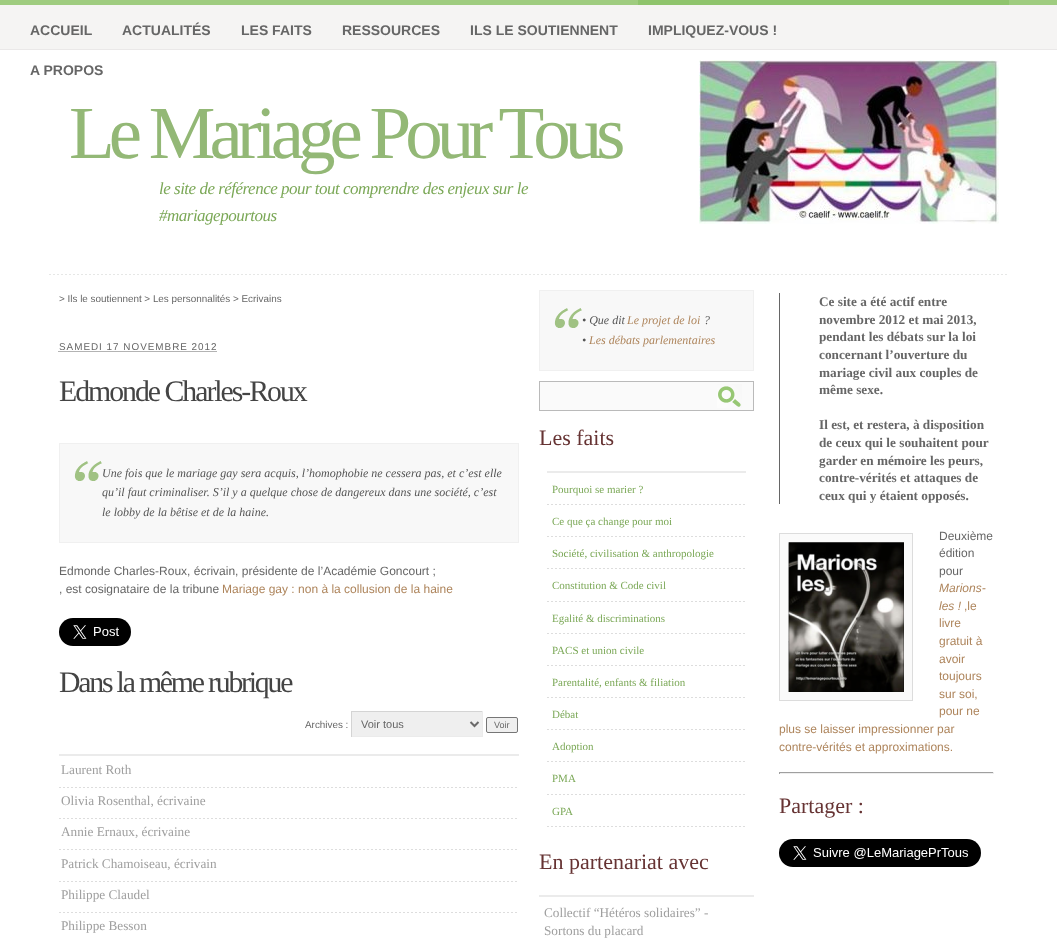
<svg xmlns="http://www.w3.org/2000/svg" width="1057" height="940">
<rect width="100%" height="100%" fill="#fff"/>
<image x="0" y="0" width="1057" height="50" href="media/1.png"/>
<rect x="638" width="371" height="5" fill="#8fc46c"/>
<text x="30" y="35" style="font-family:Liberation Sans;font-size:14px;font-weight:bold;fill:#666">ACCUEIL</text>
<text x="122" y="35" style="font-family:Liberation Sans;font-size:14px;font-weight:bold;fill:#666">ACTUALITÉS</text>
<text x="241" y="35" style="font-family:Liberation Sans;font-size:14px;font-weight:bold;fill:#666">LES FAITS</text>
<text x="342" y="35" style="font-family:Liberation Sans;font-size:14px;font-weight:bold;fill:#666">RESSOURCES</text>
<text x="470" y="35" style="font-family:Liberation Sans;font-size:14px;font-weight:bold;fill:#666">ILS LE SOUTIENNENT</text>
<text x="648" y="35" style="font-family:Liberation Sans;font-size:14px;font-weight:bold;fill:#666">IMPLIQUEZ-VOUS !</text>
<text x="30" y="75" style="font-family:Liberation Sans;font-size:14px;font-weight:bold;fill:#666">A PROPOS</text>
<image x="49" y="274" width="958" height="1" href="media/2.png"/>
<text x="69" y="158" style="font-family:Liberation Serif;font-size:75px;letter-spacing:-6px;fill:#93b876">Le Mariage Pour Tous</text>
<image x="699" y="60" width="300" height="164" href="media/3.png"/>
<text x="159" y="194" style="font-family:Liberation Serif;font-size:17px;font-style:italic;letter-spacing:-0.5px;fill:#7ba857">le site de référence pour tout comprendre des enjeux sur le</text>
<text x="159" y="221" style="font-family:Liberation Serif;font-size:17px;font-style:italic;letter-spacing:-0.5px;fill:#7ba857">#mariagepourtous</text>
<text x="59" y="302" style="font-family:Liberation Sans;font-size:9.9px;fill:#666">&gt; Ils le soutiennent &gt; Les personnalités &gt; Ecrivains</text>
<text x="59" y="350" style="font-family:Liberation Sans;font-size:9.9px;letter-spacing:1px;fill:#666">SAMEDI 17 NOVEMBRE 2012</text>
<path d="M58.5 351.5h158.5" fill="none" stroke="#666" stroke-dasharray="1 1"/>
<text x="59" y="401" style="font-family:Liberation Serif;font-size:29.75px;letter-spacing:-2px;fill:#444">Edmonde Charles-Roux</text>
<rect x="60" y="444" width="458" height="98" fill="#f8f8f8"/>
<image x="74" y="461" width="28" height="20" href="media/4.png"/>
<rect x="59.5" y="443.5" width="459" height="99" fill="none" stroke="#f0f0f0"/>
<text x="102" y="477" style="font-family:Liberation Serif;font-size:12px;font-style:italic;fill:#555">Une fois que le mariage gay sera acquis, l’homophobie ne cessera pas, et c’est elle</text>
<text x="102" y="496" style="font-family:Liberation Serif;font-size:12px;font-style:italic;fill:#555">qu’il faut criminaliser. S’il y a quelque chose de dangereux dans une société, c’est</text>
<text x="102" y="516" style="font-family:Liberation Serif;font-size:12px;font-style:italic;fill:#555">le lobby de la bêtise et de la haine.</text>
<text x="59" y="575" style="font-family:Liberation Sans;font-size:12px;fill:#666">Edmonde Charles-Roux, écrivain, présidente de l’Académie Goncourt ;</text>
<text x="59" y="593" style="font-family:Liberation Sans;font-size:12px;fill:#666">, est cosignataire de la tribune</text>
<text x="222" y="593" style="font-family:Liberation Sans;font-size:12px;fill:#ae855c">Mariage gay : non à la collusion de la haine</text>
<image x="59" y="618" width="72" height="28" href="media/5.png"/>
<text x="59" y="692" style="font-family:Liberation Serif;font-size:29.75px;letter-spacing:-2.2px;fill:#444">Dans la même rubrique</text>
<text x="305" y="728" style="font-family:Liberation Sans;font-size:9.9px;fill:#666">Archives :</text>
<rect x="352" y="712" width="130" height="24" fill="#efefef"/>
<rect x="351" y="711" width="132" height="1" fill="#d4d4d4"/>
<rect x="482" y="711" width="1" height="26" fill="#ebebeb"/>
<rect x="351" y="736" width="132" height="1" fill="#ebebeb"/>
<rect x="351" y="711" width="1" height="26" fill="#d4d4d4"/>
<path d="M470.5 722l4 4l4-4" fill="none" stroke="#6a6969" stroke-width="2"/>
<text x="361" y="728" style="font-family:Liberation Sans;font-size:11px;fill:#666">Voir tous</text>
<rect x="486.5" y="717.5" width="31" height="15" rx="1.5" fill="#efefef" stroke="#767676"/>
<text x="494" y="728" style="font-family:Liberation Sans;font-size:9px;fill:#666">Voir</text>
<rect x="59" y="754" width="460" height="2" fill="#ebebeb"/>
<image x="59" y="787" width="458" height="1" href="media/6.png"/>
<text x="61" y="774" style="font-family:Liberation Serif;font-size:13.25px;fill:#9f9f9f">Laurent Roth</text>
<image x="59" y="818" width="458" height="1" href="media/6.png"/>
<text x="61" y="805" style="font-family:Liberation Serif;font-size:13.25px;fill:#9f9f9f">Olivia Rosenthal, écrivaine</text>
<image x="59" y="849" width="458" height="1" href="media/6.png"/>
<text x="61" y="836" style="font-family:Liberation Serif;font-size:13.25px;fill:#9f9f9f">Annie Ernaux, écrivaine</text>
<image x="59" y="881" width="458" height="1" href="media/6.png"/>
<text x="61" y="868" style="font-family:Liberation Serif;font-size:13.25px;fill:#9f9f9f">Patrick Chamoiseau, écrivain</text>
<image x="59" y="912" width="458" height="1" href="media/6.png"/>
<text x="61" y="899" style="font-family:Liberation Serif;font-size:13.25px;fill:#9f9f9f">Philippe Claudel</text>
<text x="61" y="930" style="font-family:Liberation Serif;font-size:13.25px;fill:#9f9f9f">Philippe Besson</text>
<rect x="540" y="291" width="213" height="79" fill="#f8f8f8"/>
<image x="554" y="308" width="28" height="20" href="media/4.png"/>
<rect x="539.5" y="290.5" width="214" height="80" fill="none" stroke="#f0f0f0"/>
<text x="582" y="324" style="font-family:Liberation Serif;font-size:12px;font-style:italic;fill:#555">• Que dit</text>
<text x="627" y="324" style="font-family:Liberation Serif;font-size:12px;font-style:italic;fill:#ae855c">Le projet de loi</text>
<text x="704" y="324" style="font-family:Liberation Serif;font-size:12px;font-style:italic;fill:#555">?</text>
<text x="582" y="344" style="font-family:Liberation Serif;font-size:12px;font-style:italic;fill:#555">•</text>
<text x="589" y="344" style="font-family:Liberation Serif;font-size:12px;font-style:italic;fill:#ae855c">Les débats parlementaires</text>
<rect x="539.5" y="381.5" width="214" height="29" fill="#fafafa" stroke="#bababa"/>
<image x="717" y="384" width="25" height="24" href="media/7.png"/>
<text x="539" y="445" style="font-family:Liberation Serif;font-size:22px;fill:#633">Les faits</text>
<rect x="547" y="471" width="199" height="2" fill="#ebebeb"/>
<image x="547" y="504" width="198" height="1" href="media/8.png"/>
<text x="552" y="493" style="font-family:Liberation Serif;font-size:11px;fill:#7ba857">Pourquoi se marier ?</text>
<image x="547" y="536" width="198" height="1" href="media/8.png"/>
<text x="552" y="525" style="font-family:Liberation Serif;font-size:11px;fill:#7ba857">Ce que ça change pour moi</text>
<image x="547" y="568" width="198" height="1" href="media/8.png"/>
<text x="552" y="557" style="font-family:Liberation Serif;font-size:11px;fill:#7ba857">Société, civilisation &amp; anthropologie</text>
<image x="547" y="601" width="198" height="1" href="media/8.png"/>
<text x="552" y="589" style="font-family:Liberation Serif;font-size:11px;fill:#7ba857">Constitution &amp; Code civil</text>
<image x="547" y="633" width="198" height="1" href="media/8.png"/>
<text x="552" y="622" style="font-family:Liberation Serif;font-size:11px;fill:#7ba857">Egalité &amp; discriminations</text>
<image x="547" y="665" width="198" height="1" href="media/8.png"/>
<text x="552" y="654" style="font-family:Liberation Serif;font-size:11px;fill:#7ba857">PACS et union civile</text>
<image x="547" y="697" width="198" height="1" href="media/8.png"/>
<text x="552" y="686" style="font-family:Liberation Serif;font-size:11px;fill:#7ba857">Parentalité, enfants &amp; filiation</text>
<image x="547" y="729" width="198" height="1" href="media/8.png"/>
<text x="552" y="718" style="font-family:Liberation Serif;font-size:11px;fill:#7ba857">Débat</text>
<image x="547" y="761" width="198" height="1" href="media/8.png"/>
<text x="552" y="750" style="font-family:Liberation Serif;font-size:11px;fill:#7ba857">Adoption</text>
<image x="547" y="794" width="198" height="1" href="media/8.png"/>
<text x="552" y="782" style="font-family:Liberation Serif;font-size:11px;fill:#7ba857">PMA</text>
<image x="547" y="826" width="198" height="1" href="media/8.png"/>
<text x="552" y="815" style="font-family:Liberation Serif;font-size:11px;fill:#7ba857">GPA</text>
<text x="539" y="869" style="font-family:Liberation Serif;font-size:22px;fill:#633">En partenariat avec</text>
<rect x="539" y="895" width="215" height="2" fill="#ebebeb"/>
<text x="544" y="917" style="font-family:Liberation Serif;font-size:13.25px;fill:#9f9f9f">Collectif “Hétéros solidaires” -</text>
<text x="544" y="935" style="font-family:Liberation Serif;font-size:13.25px;fill:#9f9f9f">Sortons du placard</text>
<rect x="779" y="293" width="1" height="211" fill="#666"/>
<text x="819" y="306" style="font-family:Liberation Serif;font-size:13.25px;font-weight:bold;fill:#666">Ce site a été actif entre</text>
<text x="819" y="324" style="font-family:Liberation Serif;font-size:13.25px;font-weight:bold;fill:#666">novembre 2012 et mai 2013,</text>
<text x="819" y="341" style="font-family:Liberation Serif;font-size:13.25px;font-weight:bold;fill:#666">pendant les débats sur la loi</text>
<text x="819" y="359" style="font-family:Liberation Serif;font-size:13.25px;font-weight:bold;fill:#666">concernant l’ouverture du</text>
<text x="819" y="377" style="font-family:Liberation Serif;font-size:13.25px;font-weight:bold;fill:#666">mariage civil aux couples de</text>
<text x="819" y="394" style="font-family:Liberation Serif;font-size:13.25px;font-weight:bold;fill:#666">même sexe.</text>
<text x="819" y="429" style="font-family:Liberation Serif;font-size:13.25px;font-weight:bold;fill:#666">Il est, et restera, à disposition</text>
<text x="819" y="447" style="font-family:Liberation Serif;font-size:13.25px;font-weight:bold;fill:#666">de ceux qui le souhaitent pour</text>
<text x="819" y="465" style="font-family:Liberation Serif;font-size:13.25px;font-weight:bold;fill:#666">garder en mémoire les peurs,</text>
<text x="819" y="482" style="font-family:Liberation Serif;font-size:13.25px;font-weight:bold;fill:#666">contre-vérités et attaques de</text>
<text x="819" y="500" style="font-family:Liberation Serif;font-size:13.25px;font-weight:bold;fill:#666">ceux qui y étaient opposés.</text>
<text x="939" y="540" style="font-family:Liberation Sans;font-size:12px;fill:#666">Deuxième</text>
<text x="939" y="557" style="font-family:Liberation Sans;font-size:12px;fill:#666">édition</text>
<text x="939" y="575" style="font-family:Liberation Sans;font-size:12px;fill:#666">pour</text>
<text x="939" y="592" style="font-family:Liberation Sans;font-size:12px;font-style:italic;fill:#ae855c">Marions-</text>
<text x="939" y="610" style="font-family:Liberation Sans;font-size:12px;font-style:italic;fill:#ae855c">les !</text>
<text x="964" y="610" style="font-family:Liberation Sans;font-size:12px;fill:#ae855c">,le</text>
<text x="939" y="627" style="font-family:Liberation Sans;font-size:12px;fill:#ae855c">livre</text>
<text x="939" y="645" style="font-family:Liberation Sans;font-size:12px;fill:#ae855c">gratuit à</text>
<text x="939" y="663" style="font-family:Liberation Sans;font-size:12px;fill:#ae855c">avoir</text>
<text x="939" y="680" style="font-family:Liberation Sans;font-size:12px;fill:#ae855c">toujours</text>
<text x="939" y="698" style="font-family:Liberation Sans;font-size:12px;fill:#ae855c">sur soi,</text>
<text x="939" y="715" style="font-family:Liberation Sans;font-size:12px;fill:#ae855c">pour ne</text>
<text x="779" y="733" style="font-family:Liberation Sans;font-size:12px;fill:#ae855c">plus se laisser impressionner par</text>
<text x="779" y="751" style="font-family:Liberation Sans;font-size:12px;fill:#ae855c">contre-vérités et approximations.</text>
<rect x="779.5" y="533.5" width="133" height="167" fill="#fafafa" stroke="#dcdcdc"/>
<image x="788" y="542" width="116" height="150" href="media/9.png"/>
<rect x="779" y="772" width="215" height="1" fill="#9f9f9f"/>
<rect x="993" y="772" width="1" height="2" fill="#eee"/>
<rect x="779" y="773" width="215" height="1" fill="#eee"/>
<rect x="779" y="772" width="1" height="2" fill="#9f9f9f"/>
<text x="779" y="813" style="font-family:Liberation Serif;font-size:22px;fill:#633">Partager :</text>
<image x="779" y="839" width="202" height="28" href="media/10.png"/>
</svg>
